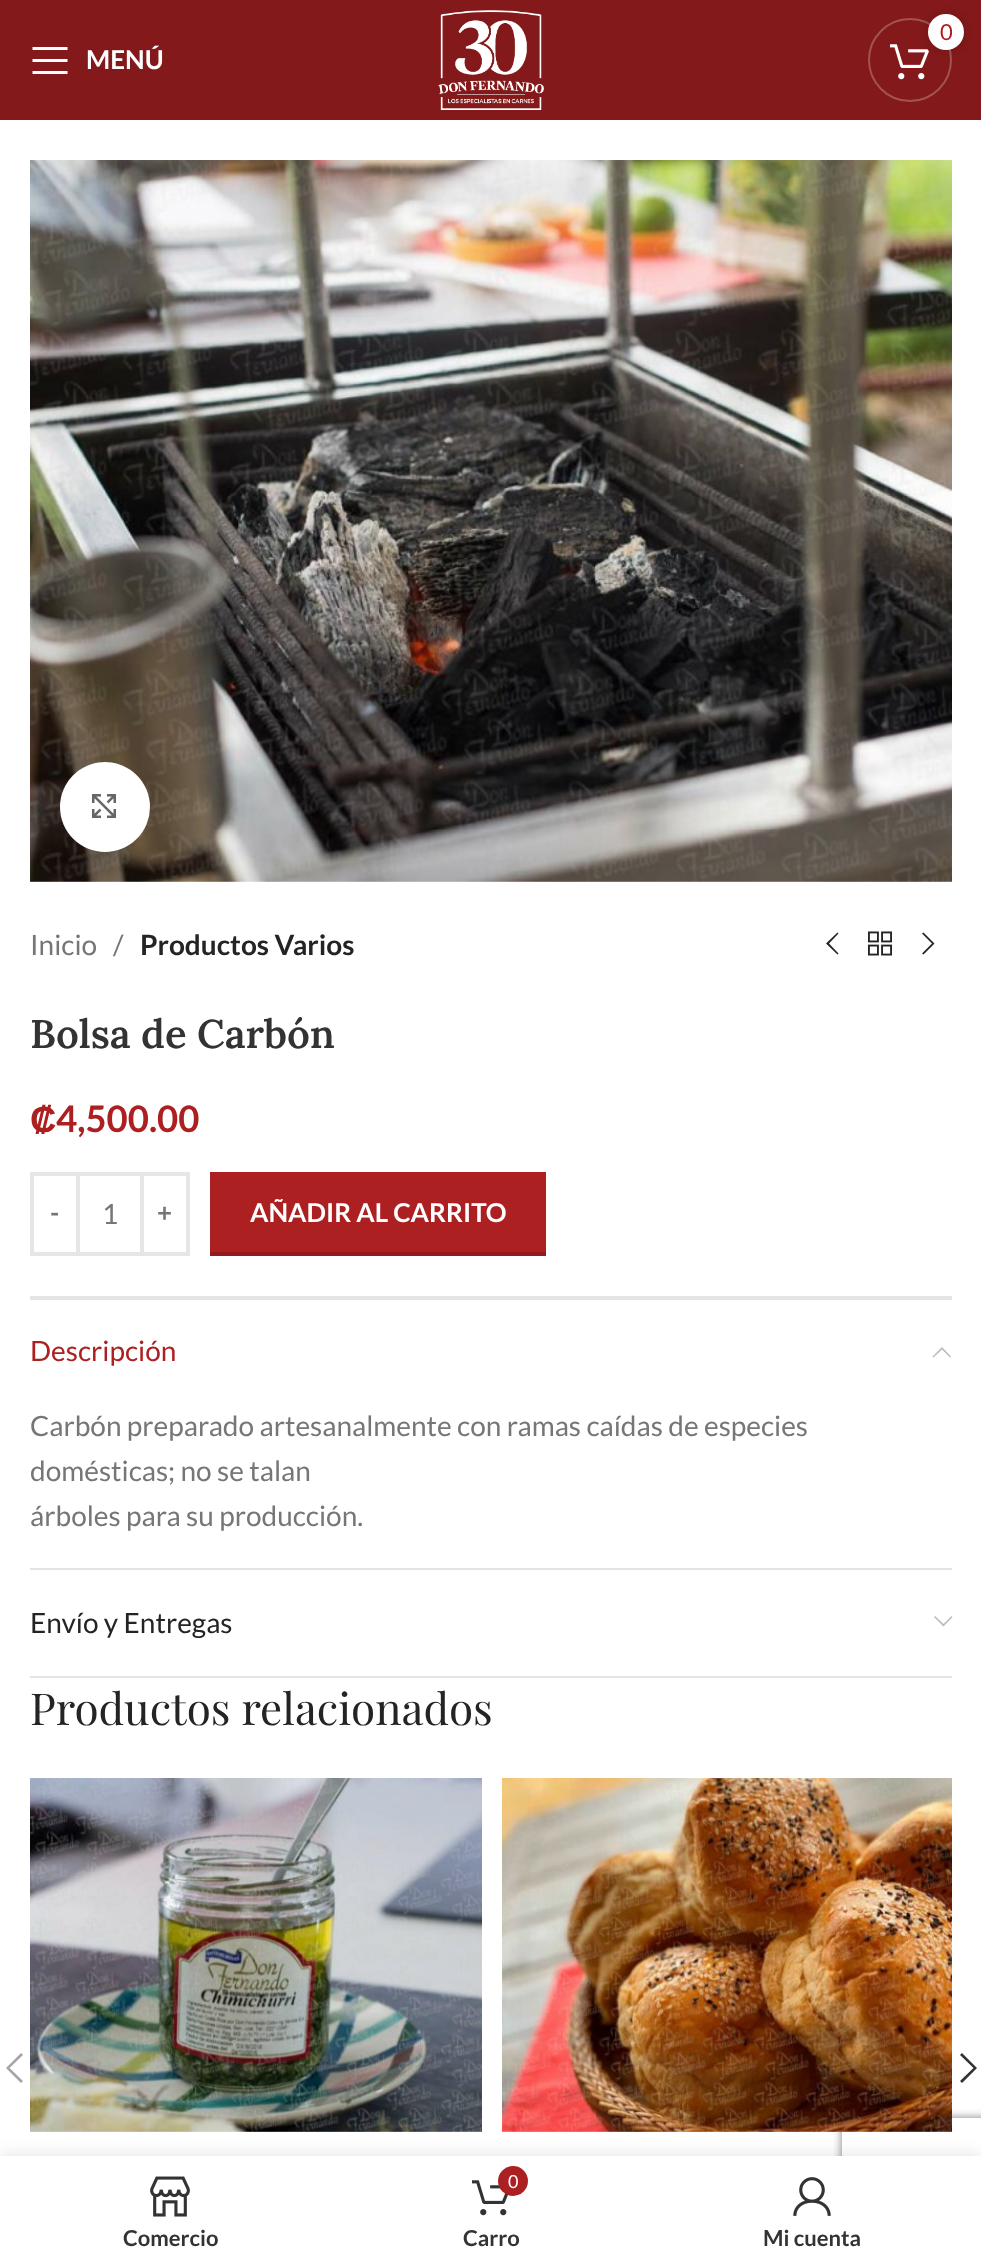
<svg xmlns="http://www.w3.org/2000/svg" width="981" height="2266">
<defs>
<clipPath id="clip1"><path d="M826 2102h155v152h-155zm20 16h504c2 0 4 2 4 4v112c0 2-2 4-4 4h-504c-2 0-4-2-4-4v-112c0-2 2-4 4-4z" clip-rule="evenodd"/></clipPath>
</defs>
<rect width="100%" height="100%" fill="#fff"/>
<rect width="981" height="120" fill="#83191a"/>
<image x="438" y="10" width="106" height="100" href="media/1.png"/>
<circle cx="910" cy="60" r="41" fill="none" stroke="#a25353" stroke-width="2"/>
<image x="890" y="44" width="39" height="36" href="media/2.png"/>
<rect x="928" y="14" width="36" height="36" rx="18" fill="#0000002b" filter="blur(4px)"/>
<circle cx="946" cy="32" r="18" fill="#fff"/>
<text x="940" y="40" style="font-family:Lato;font-size:22px;fill:#ad2022">0</text>
<path d="M32.5 50h35v-3h-35zm0 12h35v-3h-35zm0 12h35v-3h-35z" fill="#fff"/>
<text x="86" y="69" style="font-family:Lato;font-size:26px;font-weight:bold;fill:#fff">MENÚ</text>
<image x="30" y="160" width="922" height="722" href="media/3.png"/>
<circle cx="105" cy="807" r="45" fill="#fff"/>
<image x="92" y="794" width="24" height="24" href="media/4.png"/>
<text x="30" y="955" style="font-family:Lato;font-size:28px;fill:#767676">Inicio</text>
<text x="113" y="955" style="font-family:Lato;font-size:28px;fill:#767676">/</text>
<text x="140" y="955" style="font-family:Lato;font-size:28px;font-weight:bold;fill:#242424">Productos Varios</text>
<path d="M838.5 933.5l-1-1l-11.5 11l11.5 11l1-1l-9.5-10z" fill="#242424"/>
<image x="868" y="931" width="24" height="25" href="media/5.png"/>
<path d="M922 933.5l10 10l-10 10l1.5 1l11-11l-11-11z" fill="#242424"/>
<text x="30" y="1048" style="font-family:Lora;font-size:40px;font-weight:600;fill:#333">Bolsa de Carbón</text>
<text x="30" y="1132" style="font-family:Liberation Sans;font-size:36.5px;font-weight:bold;fill:#ad2022">₡</text>
<text x="56" y="1132" style="font-family:Lato;font-size:36.5px;font-weight:bold;fill:#ad2022">4,500.00</text>
<rect x="32" y="1174" width="46" height="80" fill="none" stroke="#e6e6e6" stroke-width="4"/>
<text x="50" y="1222" style="font-family:Lato;font-size:26px;font-weight:bold;fill:#767676">-</text>
<rect x="80" y="1172" width="60" height="4" fill="#e6e6e6"/>
<rect x="80" y="1252" width="60" height="4" fill="#e6e6e6"/>
<text x="102" y="1224" style="font-family:Lato;font-size:28px;fill:#767676">1</text>
<rect x="142" y="1174" width="46" height="80" fill="none" stroke="#e6e6e6" stroke-width="4"/>
<text x="157" y="1222" style="font-family:Lato;font-size:26px;font-weight:bold;fill:#767676">+</text>
<rect x="210" y="1172" width="336" height="80" fill="#ad2022"/>
<rect x="210" y="1252" width="336" height="4" fill="#931b1d"/>
<text x="250" y="1222" style="font-family:Lato;font-size:26px;font-weight:bold;fill:#fff">AÑADIR AL CARRITO</text>
<rect x="30" y="1296" width="922" height="4" fill="#e4e4e4"/>
<rect x="30" y="1568" width="922" height="2" fill="#e4e4e4"/>
<text x="30" y="1361" style="font-family:Lato;font-size:28px;fill:#ad2022">Descripción</text>
<path d="M933.5 1357.5l8.5-8l8 8l1-1l-9-9.5l-9.5 9.5z" fill="#bbb"/>
<text x="30" y="1436" style="font-family:Lato;font-size:28px;fill:#767676">Carbón preparado artesanalmente con ramas caídas de especies</text>
<text x="30" y="1481" style="font-family:Lato;font-size:28px;fill:#767676">domésticas; no se talan</text>
<text x="30" y="1526" style="font-family:Lato;font-size:28px;fill:#767676">árboles para su producción.</text>
<rect x="30" y="1676" width="922" height="2" fill="#e4e4e4"/>
<text x="30" y="1633" style="font-family:Lato;font-size:28px;fill:#242424">Envío y Entregas</text>
<path d="M951.5 1616l-8 8l-8.5-8l-1 1l9.5 9.5l9-9.5z" fill="#bbb"/>
<text x="30" y="1725" style="font-family:Playfair Display;font-size:44px;fill:#242424">Productos relacionados</text>
<image x="30" y="1778" width="452" height="354" href="media/6.png"/>
<g clip-path="url(#clip1)">
<rect x="842" y="2118" width="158" height="120" rx="4" fill="#808080" filter="blur(5px)"/>
</g>
<image x="502" y="1778" width="450" height="354" href="media/7.png"/>
<path d="M23 2055l-2-2l-15 15l15 15l2-2l-13.5-13z" fill="#a5a5a5"/>
<path d="M960 2055l13.5 13l-13.5 13l2 2l15-15l-15-15z" fill="#333"/>
<rect y="2156" width="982" height="110" fill="#0000001f" filter="blur(9px)"/>
<rect y="2156" width="981" height="110" fill="#fff"/>
<image x="150" y="2176" width="40" height="41" href="media/8.png"/>
<text x="123" y="2246" style="font-family:Lato;font-size:22px;font-weight:bold;fill:#333">Comercio</text>
<image x="472" y="2180" width="36" height="36" href="media/9.png"/>
<circle cx="513" cy="2181" r="15" fill="#ad2022"/>
<text x="508" y="2188" style="font-family:Lato;font-size:18px;fill:#fff">0</text>
<text x="463" y="2246" style="font-family:Lato;font-size:22px;font-weight:bold;fill:#333">Carro</text>
<image x="793" y="2177" width="38" height="39" href="media/10.png"/>
<text x="763" y="2246" style="font-family:Lato;font-size:22px;font-weight:bold;fill:#333">Mi cuenta</text>
</svg>
